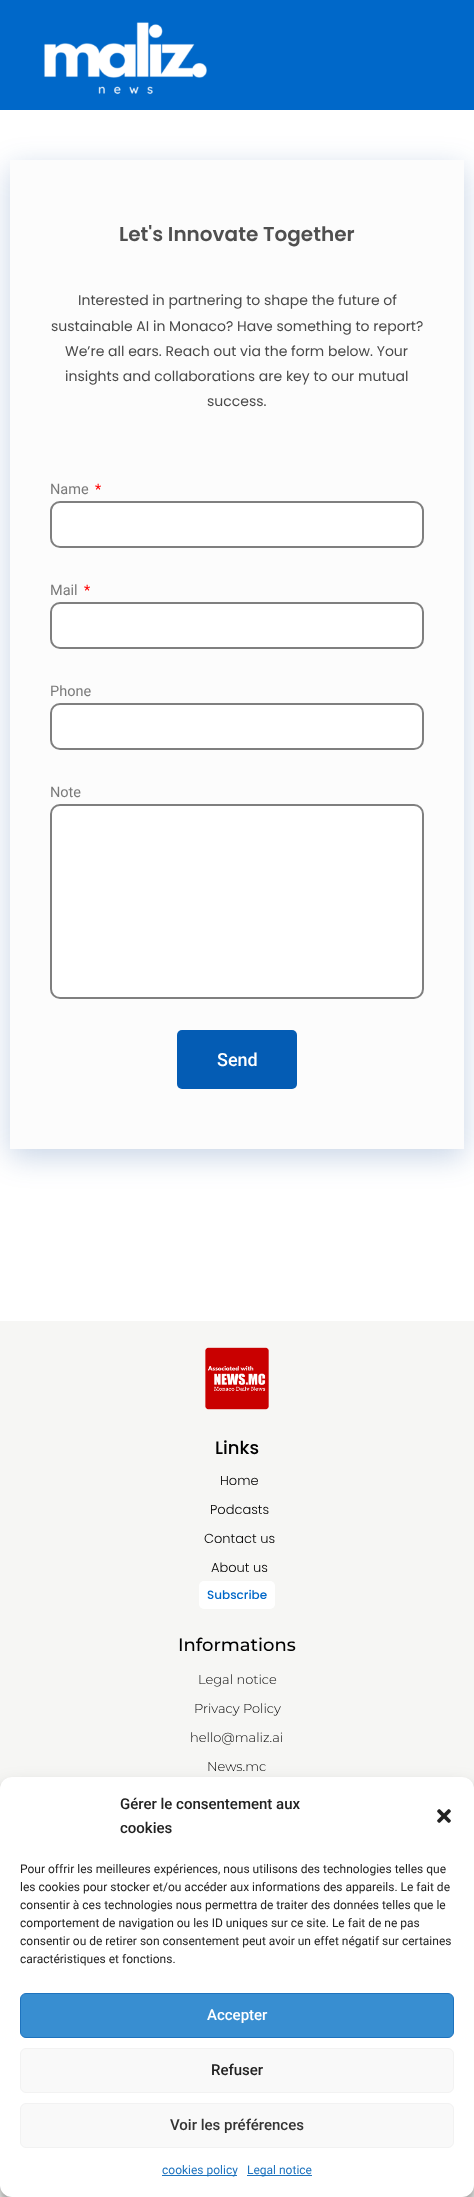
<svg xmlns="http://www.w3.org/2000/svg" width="474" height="2197">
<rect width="100%" height="100%" fill="#fff"/>
<rect width="474" height="110" fill="#0068c9"/>
<image x="44" y="22" width="163" height="73" href="media/1.png"/>
<rect x="10" y="168" width="454" height="989" fill="#003a8c38" filter="blur(15px)"/>
<rect x="10" y="160" width="454" height="989" fill="#fcfcfc"/>
<text x="119" y="241" style="font-family:Poppins;font-size:20px;font-weight:600;fill:#4f4f4f">Let's Innovate Together</text>
<text x="78" y="305" style="font-family:Poppins;font-size:14px;fill:#494949">Interested in partnering to shape the future of</text>
<text x="51" y="331" style="font-family:Poppins;font-size:14px;fill:#494949">sustainable AI in Monaco? Have something to report?</text>
<text x="65" y="356" style="font-family:Poppins;font-size:14px;fill:#494949">We’re all ears. Reach out via the form below. Your</text>
<text x="65" y="381" style="font-family:Poppins;font-size:14px;fill:#494949">insights and collaborations are key to our mutual</text>
<text x="207" y="406" style="font-family:Poppins;font-size:14px;fill:#494949">success.</text>
<text x="50" y="494" style="font-family:Roboto;font-size:14.5px;fill:#7a7a7a">Name</text>
<text x="95" y="494" style="font-family:Roboto;font-size:14.5px;fill:#f00">*</text>
<rect x="51" y="502" width="372" height="45" rx="9" fill="#fff" stroke="#7f7f7f" stroke-width="2"/>
<text x="50" y="595" style="font-family:Roboto;font-size:14.5px;fill:#7a7a7a">Mail</text>
<text x="84" y="595" style="font-family:Roboto;font-size:14.5px;fill:#f00">*</text>
<rect x="51" y="603" width="372" height="45" rx="9" fill="#fff" stroke="#7f7f7f" stroke-width="2"/>
<text x="50" y="696" style="font-family:Roboto;font-size:14.5px;fill:#7a7a7a">Phone</text>
<rect x="51" y="704" width="372" height="45" rx="9" fill="#fff" stroke="#7f7f7f" stroke-width="2"/>
<text x="50" y="797" style="font-family:Roboto;font-size:14.5px;fill:#7a7a7a">Note</text>
<rect x="51" y="805" width="372" height="193" rx="9" fill="#fff" stroke="#7f7f7f" stroke-width="2"/>
<rect x="177" y="1030" width="120" height="59" rx="5" fill="#045cb4"/>
<text x="217" y="1066" style="font-family:Roboto;font-size:18px;font-weight:500;fill:#fff">Send</text>
<rect y="1321" width="474" height="468" fill="#f6f6f4"/>
<image x="205" y="1347" width="64" height="63" href="media/2.png"/>
<text x="215" y="1454" style="font-family:Poppins;font-size:18px;font-weight:500;fill:#000">Links</text>
<text x="220" y="1485" style="font-family:Poppins;font-size:13px;font-weight:300;fill:#000">Home</text>
<text x="210" y="1514" style="font-family:Poppins;font-size:13px;font-weight:300;fill:#000">Podcasts</text>
<text x="204" y="1543" style="font-family:Poppins;font-size:13px;font-weight:300;fill:#000">Contact us</text>
<text x="211" y="1572" style="font-family:Poppins;font-size:13px;font-weight:300;fill:#000">About us</text>
<rect x="199" y="1581" width="76" height="28" rx="5" fill="#fff"/>
<text x="207" y="1599" style="font-family:Poppins;font-size:12px;font-weight:500;fill:#0068c9">Subscribe</text>
<text x="178" y="1651" style="font-family:Montserrat;font-size:18px;font-weight:500;fill:#000">Informations</text>
<text x="198" y="1684" style="font-family:Montserrat;font-size:13px;font-weight:300;fill:#000">Legal notice</text>
<text x="194" y="1713" style="font-family:Montserrat;font-size:13px;font-weight:300;fill:#000">Privacy Policy</text>
<text x="190" y="1742" style="font-family:Montserrat;font-size:13px;font-weight:300;fill:#000">hello@maliz.ai</text>
<text x="207" y="1771" style="font-family:Montserrat;font-size:13px;font-weight:300;fill:#000">News.mc</text>
<rect y="2185" width="474" height="12" fill="#f6f6f4"/>
<rect y="1783" width="474" height="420" rx="12" fill="#0000003b" filter="blur(3px)"/>
<rect y="1787" width="474" height="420" rx="12" fill="#00000030" filter="blur(10px)"/>
<rect y="1777" width="474" height="420" rx="12" fill="#fff"/>
<text x="120" y="1809" style="font-family:Roboto;font-size:15px;font-weight:500;fill:#222">Gérer le consentement aux</text>
<text x="120" y="1833" style="font-family:Roboto;font-size:15px;font-weight:500;fill:#222">cookies</text>
<image x="437" y="1809" width="14" height="14" href="media/3.png"/>
<text x="20" y="1873" style="font-family:Roboto;font-size:12px;fill:#222">Pour offrir les meilleures expériences, nous utilisons des technologies telles que</text>
<text x="20" y="1891" style="font-family:Roboto;font-size:12px;fill:#222">les cookies pour stocker et/ou accéder aux informations des appareils. Le fait de</text>
<text x="20" y="1909" style="font-family:Roboto;font-size:12px;fill:#222">consentir à ces technologies nous permettra de traiter des données telles que le</text>
<text x="20" y="1927" style="font-family:Roboto;font-size:12px;fill:#222">comportement de navigation ou les ID uniques sur ce site. Le fait de ne pas</text>
<text x="20" y="1945" style="font-family:Roboto;font-size:12px;fill:#222">consentir ou de retirer son consentement peut avoir un effet négatif sur certaines</text>
<text x="20" y="1963" style="font-family:Roboto;font-size:12px;fill:#222">caractéristiques et fonctions.</text>
<rect x="20.5" y="1993.5" width="433" height="44" rx="5.5" fill="#388ed1" stroke="#1e73be"/>
<text x="207" y="2020" style="font-family:Roboto;font-size:15px;font-weight:500;fill:#fff">Accepter</text>
<rect x="20.5" y="2048.5" width="433" height="44" rx="5.5" fill="#f9f9f9" stroke="#f2f2f2"/>
<text x="211" y="2075" style="font-family:Roboto;font-size:15px;font-weight:500;fill:#222">Refuser</text>
<rect x="20.5" y="2103.5" width="433" height="44" rx="5.5" fill="#f9f9f9" stroke="#f2f2f2"/>
<text x="170" y="2130" style="font-family:Roboto;font-size:15px;font-weight:500;fill:#333">Voir les préférences</text>
<rect x="162" y="2175" width="75" height="1" fill="#1e73be"/>
<text x="162" y="2174" style="font-family:Roboto;font-size:12px;fill:#1e73be">cookies policy</text>
<rect x="247" y="2175" width="65" height="1" fill="#1e73be"/>
<text x="247" y="2174" style="font-family:Roboto;font-size:12px;fill:#1e73be">Legal notice</text>
</svg>
